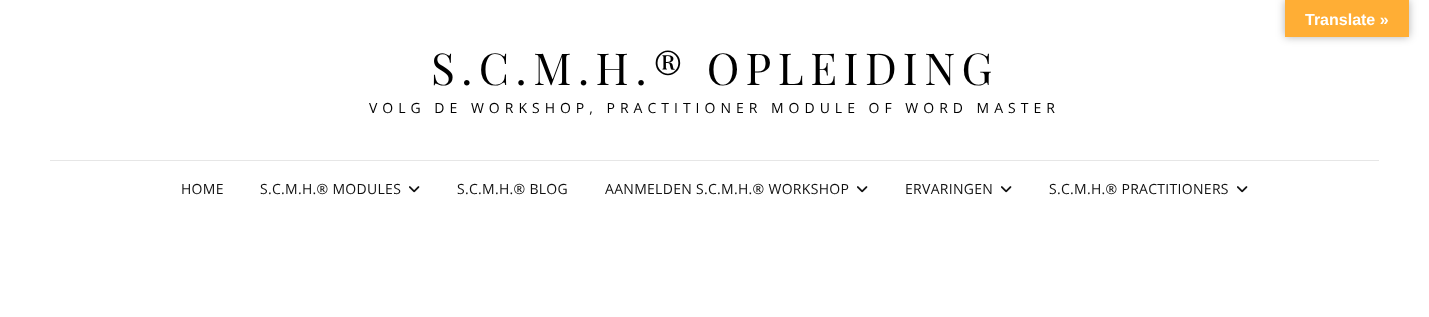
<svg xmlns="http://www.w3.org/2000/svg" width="1429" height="317">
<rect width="100%" height="100%" fill="#fff"/>
<rect x="1285" width="124" height="37" fill="#0000004d" filter="blur(4.5px)"/>
<rect x="1285" width="124" height="37" fill="#ffae35"/>
<text x="1305" y="25" style="font-family:Liberation Sans;font-size:16px;font-weight:bold;fill:#fff">Translate »</text>
<text x="431" y="85" style="font-family:Playfair Display;font-size:44px;letter-spacing:6.5px;fill:#000">S.C.M.H.® OPLEIDING</text>
<text x="369" y="113" style="font-family:Open Sans;font-size:14px;letter-spacing:5px;fill:#000">VOLG DE WORKSHOP, PRACTITIONER MODULE OF WORD MASTER</text>
<rect x="50" y="160" width="1329" height="1" fill="#e6e6e6"/>
<text x="181" y="194" style="font-family:Open Sans;font-size:14px;letter-spacing:0.3px;fill:#111">HOME</text>
<text x="260" y="194" style="font-family:Open Sans;font-size:14px;letter-spacing:0.3px;fill:#111">S.C.M.H.® MODULES</text>
<image x="409" y="186" width="11" height="7" href="media/1.png"/>
<text x="457" y="194" style="font-family:Open Sans;font-size:14px;letter-spacing:0.3px;fill:#111">S.C.M.H.® BLOG</text>
<text x="605" y="194" style="font-family:Open Sans;font-size:14px;letter-spacing:0.3px;fill:#111">AANMELDEN S.C.M.H.® WORKSHOP</text>
<image x="857" y="186" width="11" height="7" href="media/1.png"/>
<text x="905" y="194" style="font-family:Open Sans;font-size:14px;letter-spacing:0.3px;fill:#111">ERVARINGEN</text>
<image x="1001" y="186" width="11" height="7" href="media/1.png"/>
<text x="1049" y="194" style="font-family:Open Sans;font-size:14px;letter-spacing:0.3px;fill:#111">S.C.M.H.® PRACTITIONERS</text>
<image x="1237" y="186" width="11" height="7" href="media/1.png"/>
</svg>
